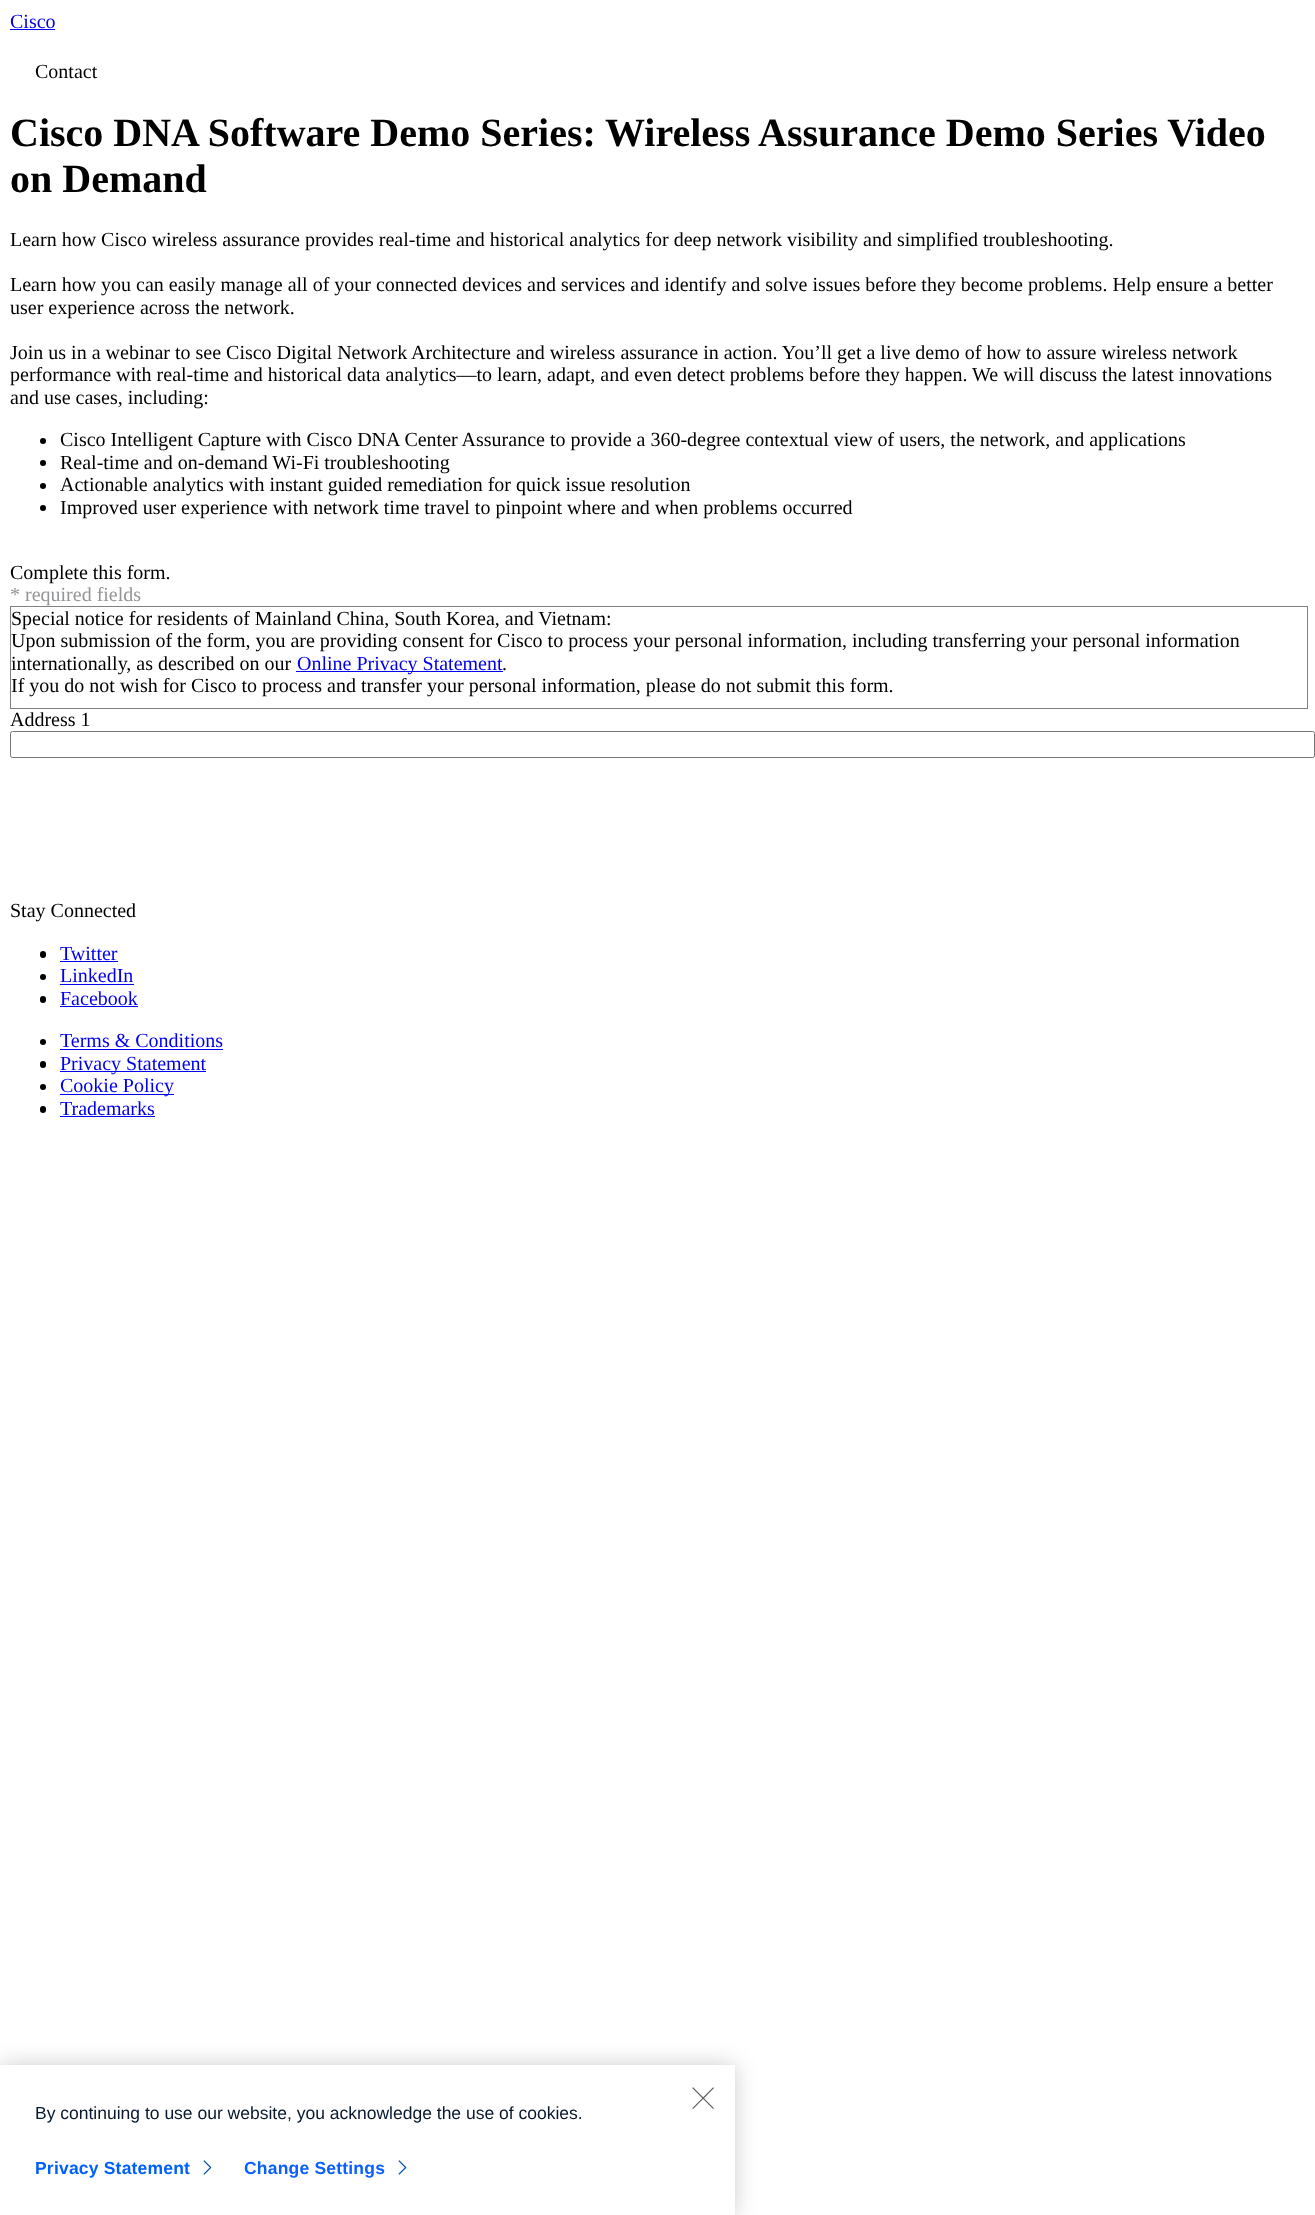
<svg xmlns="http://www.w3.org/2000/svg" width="1315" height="2215">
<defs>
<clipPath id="clip1"><path d="M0 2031h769v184h-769zm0 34h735v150h-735z" clip-rule="evenodd"/></clipPath>
</defs>
<rect width="100%" height="100%" fill="#fff"/>
<text x="10" y="28" style="font-family:Liberation Serif;font-size:20px;fill:#00e">Cisco</text>
<rect x="10" y="29" width="45" height="1" fill="#00e"/>
<text x="35" y="78" style="font-family:Liberation Serif;font-size:20px;fill:#000">Contact</text>
<text x="10" y="146" style="font-family:Liberation Serif;font-size:40px;font-weight:bold;fill:#000">Cisco DNA Software Demo Series: Wireless Assurance Demo Series Video</text>
<text x="10" y="192" style="font-family:Liberation Serif;font-size:40px;font-weight:bold;fill:#000">on Demand</text>
<text x="10" y="246" style="font-family:Liberation Serif;font-size:20px;fill:#000">Learn how Cisco wireless assurance provides real-time and historical analytics for deep network visibility and simplified troubleshooting.</text>
<text x="10" y="291" style="font-family:Liberation Serif;font-size:20px;fill:#000">Learn how you can easily manage all of your connected devices and services and identify and solve issues before they become problems. Help ensure a better</text>
<text x="10" y="314" style="font-family:Liberation Serif;font-size:20px;fill:#000">user experience across the network.</text>
<text x="10" y="359" style="font-family:Liberation Serif;font-size:20px;fill:#000">Join us in a webinar to see Cisco Digital Network Architecture and wireless assurance in action. You’ll get a live demo of how to assure wireless network</text>
<text x="10" y="381" style="font-family:Liberation Serif;font-size:20px;fill:#000">performance with real-time and historical data analytics—to learn, adapt, and even detect problems before they happen. We will discuss the latest innovations</text>
<text x="10" y="404" style="font-family:Liberation Serif;font-size:20px;fill:#000">and use cases, including:</text>
<circle cx="43" cy="441" r="3" fill="#000"/>
<text x="60" y="446" style="font-family:Liberation Serif;font-size:20px;fill:#000">Cisco Intelligent Capture with Cisco DNA Center Assurance to provide a 360-degree contextual view of users, the network, and applications</text>
<circle cx="43" cy="463" r="3" fill="#000"/>
<text x="60" y="469" style="font-family:Liberation Serif;font-size:20px;fill:#000">Real-time and on-demand Wi-Fi troubleshooting</text>
<circle cx="43" cy="486" r="3" fill="#000"/>
<text x="60" y="491" style="font-family:Liberation Serif;font-size:20px;fill:#000">Actionable analytics with instant guided remediation for quick issue resolution</text>
<circle cx="43" cy="508" r="3" fill="#000"/>
<text x="60" y="514" style="font-family:Liberation Serif;font-size:20px;fill:#000">Improved user experience with network time travel to pinpoint where and when problems occurred</text>
<text x="10" y="579" style="font-family:Liberation Serif;font-size:20px;fill:#000">Complete this form.</text>
<text x="10" y="601" style="font-family:Liberation Serif;font-size:20px;fill:#939597">* required fields</text>
<rect x="10.5" y="606.5" width="1297" height="102" fill="none" stroke="#808080"/>
<text x="11" y="625" style="font-family:Liberation Serif;font-size:20px;fill:#000">Special notice for residents of Mainland China, South Korea, and Vietnam:</text>
<text x="11" y="647" style="font-family:Liberation Serif;font-size:20px;fill:#000">Upon submission of the form, you are providing consent for Cisco to process your personal information, including transferring your personal information</text>
<text x="11" y="670" style="font-family:Liberation Serif;font-size:20px;fill:#000">internationally, as described on our</text>
<rect x="296" y="671" width="207" height="1" fill="#00e"/>
<text x="297" y="670" style="font-family:Liberation Serif;font-size:20px;fill:#00e">Online Privacy Statement</text>
<text x="502" y="670" style="font-family:Liberation Serif;font-size:20px;fill:#000">.</text>
<text x="11" y="692" style="font-family:Liberation Serif;font-size:20px;fill:#000">If you do not wish for Cisco to process and transfer your personal information, please do not submit this form.</text>
<text x="10" y="726" style="font-family:Liberation Serif;font-size:20px;fill:#000">Address 1</text>
<rect x="10.5" y="731.5" width="1304" height="26" rx="2" fill="none" stroke="#767676"/>
<text x="10" y="917" style="font-family:Liberation Serif;font-size:20px;fill:#000">Stay Connected</text>
<rect x="40" y="951" width="6" height="7" rx="3" fill="#000"/>
<text x="60" y="960" style="font-family:Liberation Serif;font-size:20px;fill:#00e">Twitter</text>
<rect x="60" y="961" width="58" height="1" fill="#00e"/>
<circle cx="43" cy="977" r="3" fill="#000"/>
<text x="60" y="982" style="font-family:Liberation Serif;font-size:20px;fill:#00e">LinkedIn</text>
<rect x="60" y="984" width="74" height="1" fill="#00e"/>
<rect x="40" y="996" width="6" height="7" rx="3" fill="#000"/>
<text x="60" y="1005" style="font-family:Liberation Serif;font-size:20px;fill:#00e">Facebook</text>
<rect x="60" y="1006" width="78" height="1" fill="#00e"/>
<circle cx="43" cy="1042" r="3" fill="#000"/>
<text x="60" y="1047" style="font-family:Liberation Serif;font-size:20px;fill:#00e">Terms &amp; Conditions</text>
<rect x="60" y="1049" width="163" height="1" fill="#00e"/>
<rect x="40" y="1061" width="6" height="7" rx="3" fill="#000"/>
<rect x="60" y="1071" width="146" height="1" fill="#00e"/>
<text x="60" y="1070" style="font-family:Liberation Serif;font-size:20px;fill:#00e">Privacy Statement</text>
<circle cx="43" cy="1087" r="3" fill="#000"/>
<rect x="60" y="1094" width="114" height="1" fill="#00e"/>
<text x="60" y="1092" style="font-family:Liberation Serif;font-size:20px;fill:#00e">Cookie Policy</text>
<rect x="40" y="1106" width="6" height="7" rx="3" fill="#000"/>
<text x="60" y="1115" style="font-family:Liberation Serif;font-size:20px;fill:#00e">Trademarks</text>
<rect x="60" y="1116" width="95" height="1" fill="#00e"/>
<g clip-path="url(#clip1)">
<rect y="2065" width="735" height="150" fill="#00000033" filter="blur(11px)"/>
</g>
<image x="692" y="2087" width="22" height="22" href="media/1.png"/>
<text x="35" y="2119" style="font-family:Liberation Sans;font-size:17.5px;fill:#07182d">By continuing to use our website, you acknowledge the use of cookies.</text>
<text x="35" y="2174" style="font-family:Liberation Sans;font-size:17.5px;font-weight:bold;letter-spacing:0.2px;fill:#0060ff">Privacy Statement</text>
<image x="203" y="2160" width="9" height="15" href="media/2.png"/>
<text x="244" y="2174" style="font-family:Liberation Sans;font-size:17.5px;font-weight:bold;letter-spacing:0.2px;fill:#0a60ff">Change Settings</text>
<image x="398" y="2160" width="9" height="15" href="media/2.png"/>
</svg>
